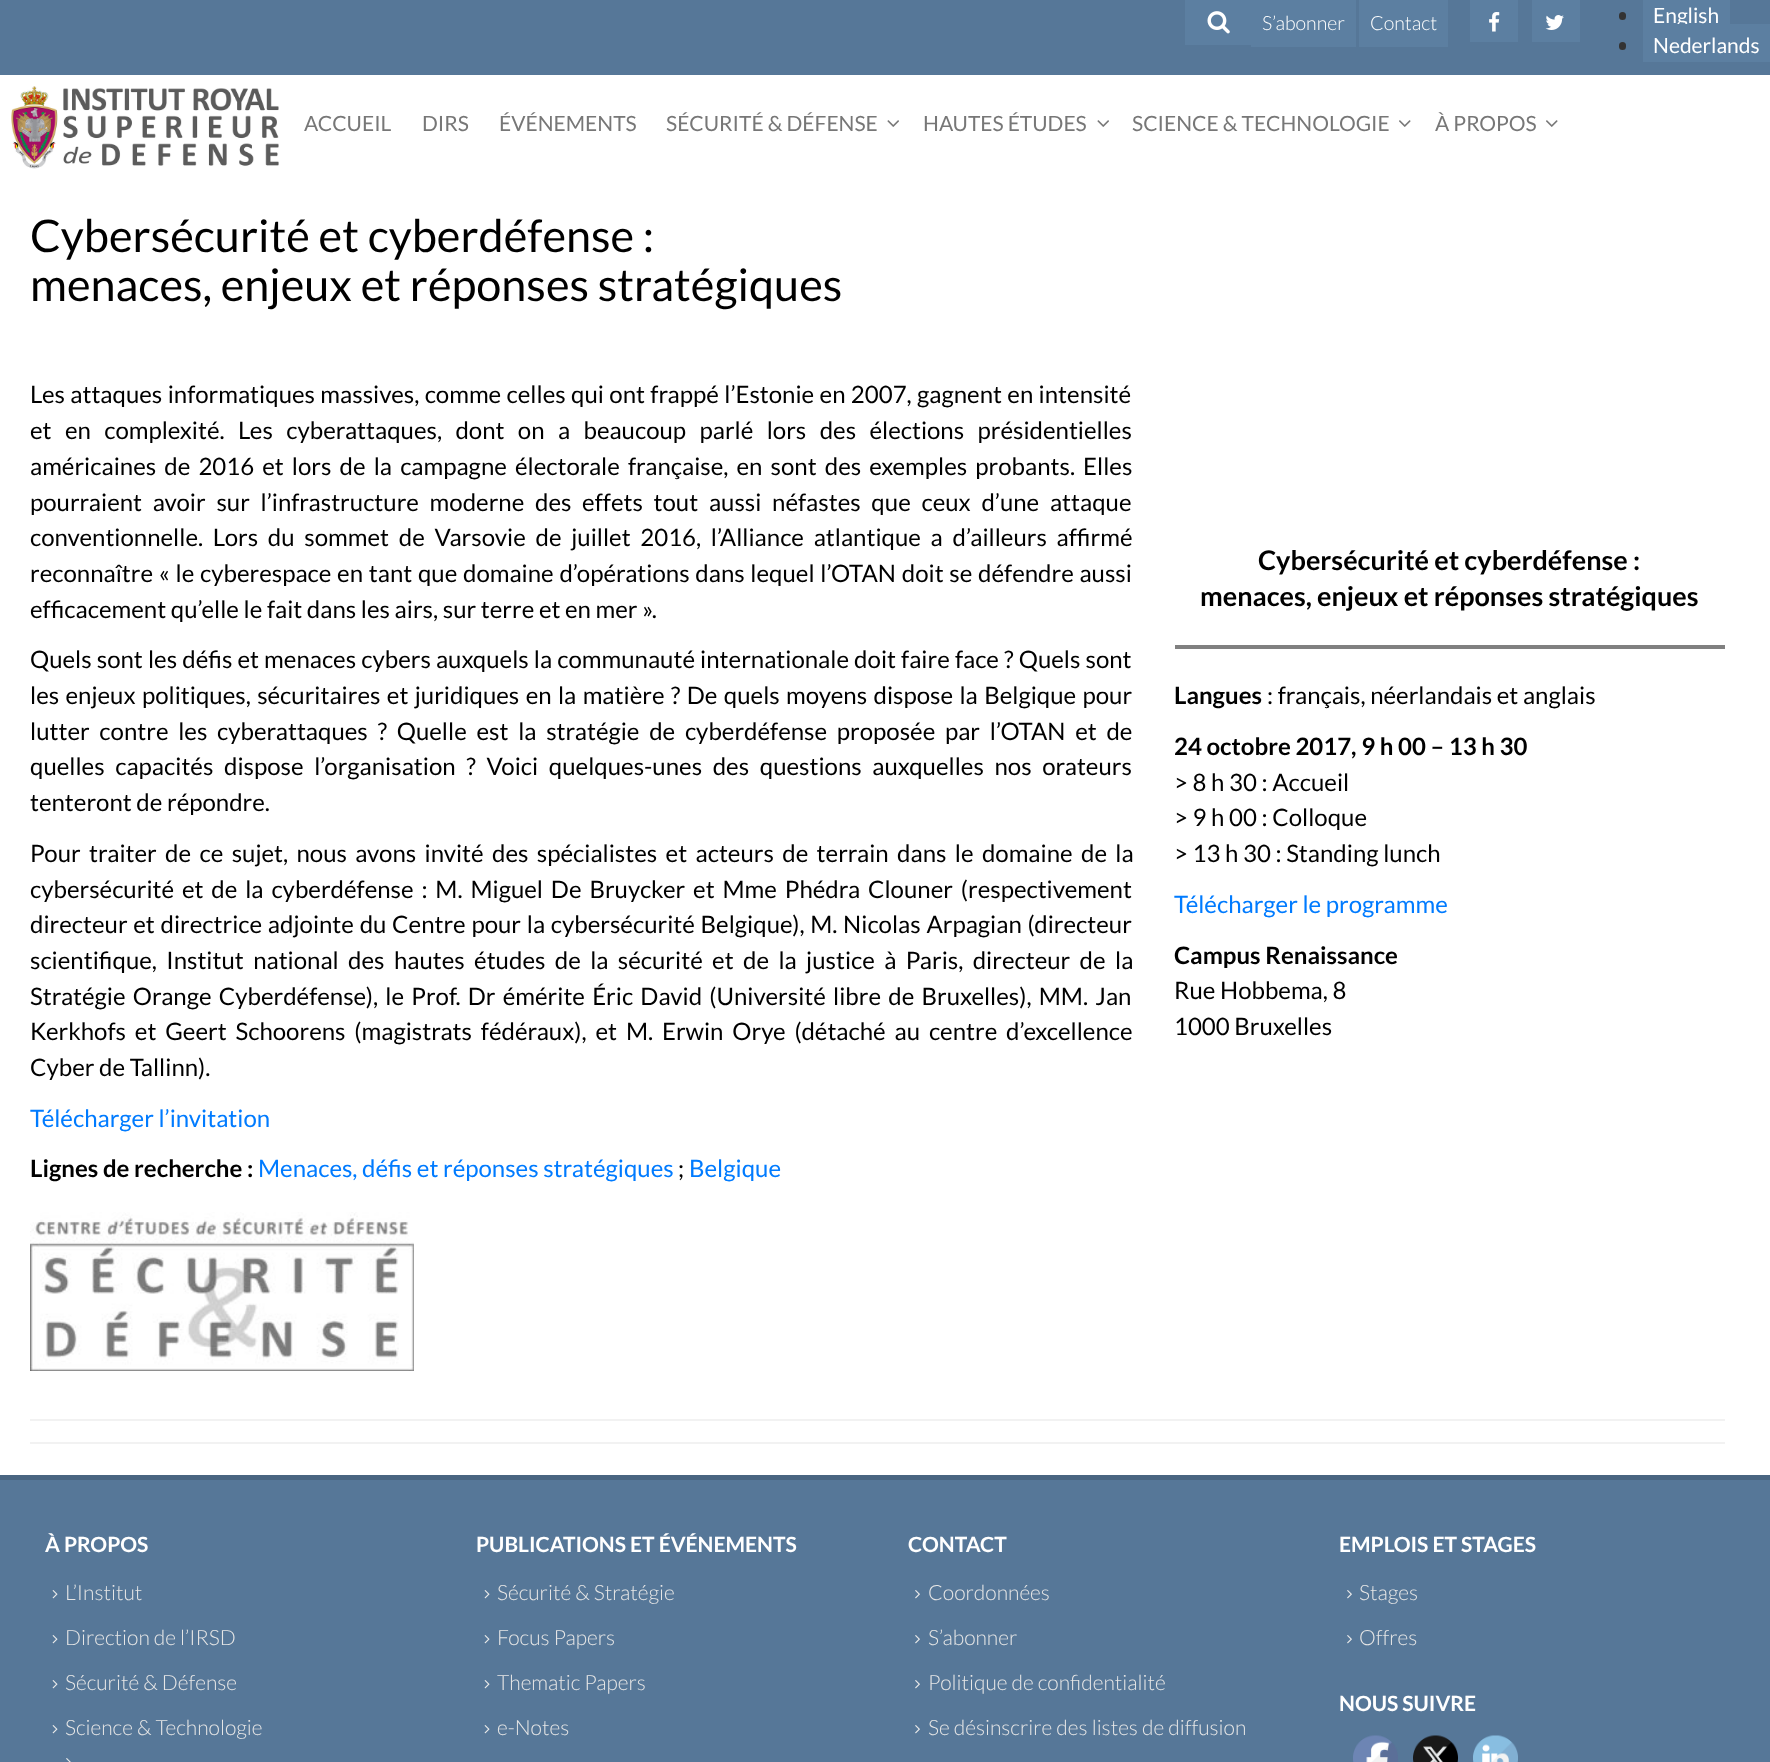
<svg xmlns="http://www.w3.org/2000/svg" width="1770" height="1762">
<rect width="100%" height="100%" fill="#fff"/>
<rect width="1770" height="75" fill="#567798"/>
<rect x="1185" width="66" height="45" fill="#5c7fa1"/>
<image x="1207" y="11" width="23" height="23" href="media/1.png"/>
<rect x="1251" width="105" height="47" fill="#5c7fa1"/>
<text x="1262" y="30" style="font-family:Lato;font-size:19.5px;font-weight:300;fill:#fff">S’abonner</text>
<rect x="1359" width="89" height="47" fill="#5c7fa1"/>
<text x="1370" y="30" style="font-family:Lato;font-size:19.5px;font-weight:300;fill:#fff">Contact</text>
<rect x="1470" width="48" height="42" fill="#5c7fa1"/>
<image x="1489" y="12" width="11" height="20" href="media/2.png"/>
<rect x="1532" width="48" height="42" fill="#5c7fa1"/>
<image x="1545" y="15" width="19" height="15" href="media/3.png"/>
<rect x="1619" y="12" width="7" height="8" rx="3.5" fill="#333"/>
<rect x="1643" width="87" height="24" fill="#5c7fa1"/>
<text x="1653" y="23" style="font-family:Lato;font-size:21px;fill:#fff">English</text>
<rect x="1619" y="42" width="7" height="8" rx="3.5" fill="#333"/>
<rect x="1643" y="24" width="127" height="38" fill="#5c7fa1"/>
<text x="1653" y="53" style="font-family:Lato;font-size:21px;fill:#fff">Nederlands</text>
<image x="11" y="86" width="268" height="83" href="media/4.png"/>
<text x="304" y="131" style="font-family:Lato;font-size:21px;fill:#777">ACCUEIL</text>
<text x="422" y="131" style="font-family:Lato;font-size:21px;fill:#777">DIRS</text>
<text x="499" y="131" style="font-family:Lato;font-size:21px;fill:#777">ÉVÉNEMENTS</text>
<text x="666" y="131" style="font-family:Lato;font-size:21px;fill:#777">SÉCURITÉ &amp; DÉFENSE</text>
<image x="887" y="120" width="12" height="7" href="media/5.png"/>
<text x="923" y="131" style="font-family:Lato;font-size:21px;fill:#777">HAUTES ÉTUDES</text>
<image x="1097" y="120" width="12" height="7" href="media/5.png"/>
<text x="1132" y="131" style="font-family:Lato;font-size:21px;fill:#777">SCIENCE &amp; TECHNOLOGIE</text>
<image x="1399" y="120" width="12" height="7" href="media/6.png"/>
<text x="1435" y="131" style="font-family:Lato;font-size:21px;fill:#777">À PROPOS</text>
<image x="1546" y="120" width="12" height="7" href="media/6.png"/>
<text x="30" y="252" style="font-family:Lato;font-size:45px;fill:#000">Cybersécurité et cyberdéfense :</text>
<text x="30" y="301" style="font-family:Lato;font-size:45px;fill:#000">menaces, enjeux et réponses stratégiques</text>
<text x="30" y="403" word-spacing="0.75" style="font-family:Lato;font-size:24px;fill:#000">Les attaques informatiques massives, comme celles qui ont frappé l’Estonie en 2007, gagnent en intensité</text>
<text x="30" y="439" word-spacing="8.75" style="font-family:Lato;font-size:24px;fill:#000">et en complexité. Les cyberattaques, dont on a beaucoup parlé lors des élections présidentielles</text>
<text x="30" y="475" word-spacing="3.5" style="font-family:Lato;font-size:24px;fill:#000">américaines de 2016 et lors de la campagne électorale française, en sont des exemples probants. Elles</text>
<text x="30" y="511" word-spacing="6.1" style="font-family:Lato;font-size:24px;fill:#000">pourraient avoir sur l’infrastructure moderne des effets tout aussi néfastes que ceux d’une attaque</text>
<text x="30" y="546" word-spacing="5.1" style="font-family:Lato;font-size:24px;fill:#000">conventionnelle. Lors du sommet de Varsovie de juillet 2016, l’Alliance atlantique a d’ailleurs affirmé</text>
<text x="30" y="582" word-spacing="1.1" style="font-family:Lato;font-size:24px;fill:#000">reconnaître « le cyberespace en tant que domaine d’opérations dans lequel l’OTAN doit se défendre aussi</text>
<text x="30" y="618" style="font-family:Lato;font-size:24px;fill:#000">efficacement qu’elle le fait dans les airs, sur terre et en mer ».</text>
<text x="30" y="668" word-spacing="0.5" style="font-family:Lato;font-size:24px;fill:#000">Quels sont les défis et menaces cybers auxquels la communauté internationale doit faire face ? Quels sont</text>
<text x="30" y="704" word-spacing="1.75" style="font-family:Lato;font-size:24px;fill:#000">les enjeux politiques, sécuritaires et juridiques en la matière ? De quels moyens dispose la Belgique pour</text>
<text x="30" y="740" word-spacing="5.1" style="font-family:Lato;font-size:24px;fill:#000">lutter contre les cyberattaques ? Quelle est la stratégie de cyberdéfense proposée par l’OTAN et de</text>
<text x="30" y="775" word-spacing="6" style="font-family:Lato;font-size:24px;fill:#000">quelles capacités dispose l’organisation ? Voici quelques-unes des questions auxquelles nos orateurs</text>
<text x="30" y="811" style="font-family:Lato;font-size:24px;fill:#000">tenteront de répondre.</text>
<text x="30" y="862" word-spacing="3.75" style="font-family:Lato;font-size:24px;fill:#000">Pour traiter de ce sujet, nous avons invité des spécialistes et acteurs de terrain dans le domaine de la</text>
<text x="30" y="898" word-spacing="3.25" style="font-family:Lato;font-size:24px;fill:#000">cybersécurité et de la cyberdéfense : M. Miguel De Bruycker et Mme Phédra Clouner (respectivement</text>
<text x="30" y="933" word-spacing="1.1" style="font-family:Lato;font-size:24px;fill:#000">directeur et directrice adjointe du Centre pour la cybersécurité Belgique), M. Nicolas Arpagian (directeur</text>
<text x="30" y="969" word-spacing="4.75" style="font-family:Lato;font-size:24px;fill:#000">scientifique, Institut national des hautes études de la sécurité et de la justice à Paris, directeur de la</text>
<text x="30" y="1005" word-spacing="2.6" style="font-family:Lato;font-size:24px;fill:#000">Stratégie Orange Cyberdéfense), le Prof. Dr émérite Éric David (Université libre de Bruxelles), MM. Jan</text>
<text x="30" y="1040" word-spacing="4.25" style="font-family:Lato;font-size:24px;fill:#000">Kerkhofs et Geert Schoorens (magistrats fédéraux), et M. Erwin Orye (détaché au centre d’excellence</text>
<text x="30" y="1076" style="font-family:Lato;font-size:24px;fill:#000">Cyber de Tallinn).</text>
<text x="30" y="1127" style="font-family:Lato;font-size:24px;fill:#007bff">Télécharger l’invitation</text>
<text x="30" y="1177" style="font-family:Lato;font-size:24px;font-weight:bold;fill:#000">Lignes de recherche :</text>
<text x="258" y="1177" style="font-family:Lato;font-size:24px;fill:#007bff">Menaces, défis et réponses stratégiques</text>
<text x="678" y="1177" style="font-family:Lato;font-size:24px;fill:#000">;</text>
<text x="689" y="1177" style="font-family:Lato;font-size:24px;fill:#007bff">Belgique</text>
<image x="30" y="1212" width="384" height="159" href="media/7.png"/>
<text x="1258" y="570" style="font-family:Lato;font-size:27px;font-weight:bold;fill:#000">Cybersécurité et cyberdéfense :</text>
<text x="1200" y="606" style="font-family:Lato;font-size:27px;font-weight:bold;fill:#000">menaces, enjeux et réponses stratégiques</text>
<rect x="1175" y="645" width="550" height="4" fill="#808080"/>
<text x="1174" y="704" style="font-family:Lato;font-size:24px;font-weight:bold;fill:#000">Langues</text>
<text x="1267" y="704" style="font-family:Lato;font-size:24px;fill:#000">: français, néerlandais et anglais</text>
<text x="1174" y="755" style="font-family:Lato;font-size:24px;font-weight:bold;fill:#000">24 octobre 2017, 9 h 00 – 13 h 30</text>
<text x="1174" y="791" style="font-family:Lato;font-size:24px;fill:#000">&gt; 8 h 30 : Accueil</text>
<text x="1174" y="826" style="font-family:Lato;font-size:24px;fill:#000">&gt; 9 h 00 : Colloque</text>
<text x="1174" y="862" style="font-family:Lato;font-size:24px;fill:#000">&gt; 13 h 30 : Standing lunch</text>
<text x="1174" y="913" style="font-family:Lato;font-size:24px;fill:#007bff">Télécharger le programme</text>
<text x="1174" y="964" style="font-family:Lato;font-size:24px;font-weight:bold;fill:#000">Campus Renaissance</text>
<text x="1174" y="999" style="font-family:Lato;font-size:24px;fill:#000">Rue Hobbema, 8</text>
<text x="1174" y="1035" style="font-family:Lato;font-size:24px;fill:#000">1000 Bruxelles</text>
<rect x="30" y="1419" width="1695" height="2" fill="#f2f2f2"/>
<rect x="30" y="1442" width="1695" height="2" fill="#f2f2f2"/>
<rect y="1480" width="1770" height="282" fill="#567798"/>
<rect y="1475" width="1770" height="5" fill="#496581"/>
<text x="45" y="1552" style="font-family:Lato;font-size:21px;font-weight:bold;fill:#fff">À PROPOS</text>
<image x="52" y="1590" width="6" height="9" href="media/8.png"/>
<text x="65" y="1600" style="font-family:Lato;font-size:21px;font-weight:300;fill:#e6e6e6">L’Institut</text>
<image x="52" y="1635" width="6" height="9" href="media/8.png"/>
<text x="65" y="1645" style="font-family:Lato;font-size:21px;font-weight:300;fill:#e6e6e6">Direction de l’IRSD</text>
<image x="52" y="1680" width="6" height="9" href="media/8.png"/>
<text x="65" y="1690" style="font-family:Lato;font-size:21px;font-weight:300;fill:#e6e6e6">Sécurité &amp; Défense</text>
<image x="52" y="1725" width="6" height="9" href="media/8.png"/>
<text x="65" y="1735" style="font-family:Lato;font-size:21px;font-weight:300;fill:#e6e6e6">Science &amp; Technologie</text>
<image x="66" y="1758" width="5" height="4" href="media/9.png"/>
<text x="476" y="1552" style="font-family:Lato;font-size:21px;font-weight:bold;fill:#fff">PUBLICATIONS ET ÉVÉNEMENTS</text>
<image x="484" y="1590" width="6" height="9" href="media/8.png"/>
<text x="497" y="1600" style="font-family:Lato;font-size:21px;font-weight:300;fill:#e6e6e6">Sécurité &amp; Stratégie</text>
<image x="484" y="1635" width="6" height="9" href="media/8.png"/>
<text x="497" y="1645" style="font-family:Lato;font-size:21px;font-weight:300;fill:#e6e6e6">Focus Papers</text>
<image x="484" y="1680" width="6" height="9" href="media/8.png"/>
<text x="497" y="1690" style="font-family:Lato;font-size:21px;font-weight:300;fill:#e6e6e6">Thematic Papers</text>
<image x="484" y="1725" width="6" height="9" href="media/8.png"/>
<text x="497" y="1735" style="font-family:Lato;font-size:21px;font-weight:300;fill:#e6e6e6">e-Notes</text>
<text x="908" y="1552" style="font-family:Lato;font-size:21px;font-weight:bold;fill:#fff">CONTACT</text>
<image x="915" y="1590" width="5" height="9" href="media/10.png"/>
<text x="928" y="1600" style="font-family:Lato;font-size:21px;font-weight:300;fill:#e6e6e6">Coordonnées</text>
<image x="915" y="1635" width="5" height="9" href="media/10.png"/>
<text x="928" y="1645" style="font-family:Lato;font-size:21px;font-weight:300;fill:#e6e6e6">S’abonner</text>
<image x="915" y="1680" width="5" height="9" href="media/10.png"/>
<text x="928" y="1690" style="font-family:Lato;font-size:21px;font-weight:300;fill:#e6e6e6">Politique de confidentialité</text>
<image x="915" y="1725" width="5" height="9" href="media/10.png"/>
<text x="928" y="1735" style="font-family:Lato;font-size:21px;font-weight:300;fill:#e6e6e6">Se désinscrire des listes de diffusion</text>
<text x="1339" y="1552" style="font-family:Lato;font-size:21px;font-weight:bold;fill:#fff">EMPLOIS ET STAGES</text>
<image x="1347" y="1590" width="5" height="9" href="media/10.png"/>
<text x="1359" y="1600" style="font-family:Lato;font-size:21px;font-weight:300;fill:#e6e6e6">Stages</text>
<image x="1347" y="1635" width="5" height="9" href="media/10.png"/>
<text x="1359" y="1645" style="font-family:Lato;font-size:21px;font-weight:300;fill:#e6e6e6">Offres</text>
<text x="1339" y="1711" style="font-family:Lato;font-size:21px;font-weight:bold;fill:#fff">NOUS SUIVRE</text>
<image x="1353" y="1735" width="45" height="27" href="media/11.png"/>
<image x="1413" y="1735" width="45" height="27" href="media/12.png"/>
<image x="1473" y="1735" width="45" height="27" href="media/13.png"/>
</svg>
